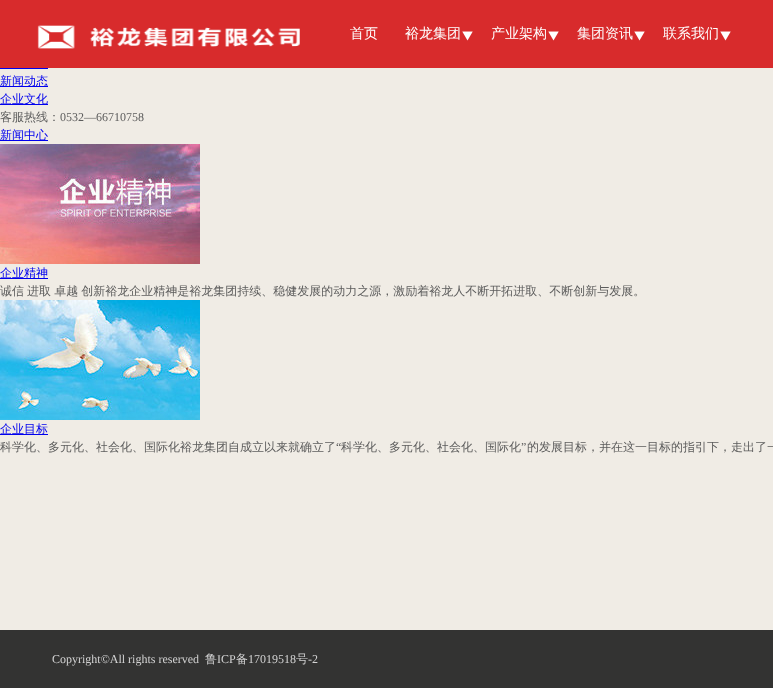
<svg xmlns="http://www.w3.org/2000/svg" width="773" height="688">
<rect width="100%" height="100%" fill="#f0ece5"/>
<rect width="773" height="68" fill="#d82b2c"/>
<image x="37" y="25" width="263" height="24" href="media/1.png"/>
<text x="350" y="38" style="font-family:WenQuanYi Zen Hei;font-size:14px;font-weight:500;fill:#fff">首页</text>
<image x="462" y="31" width="11" height="10" href="media/2.png"/>
<text x="405" y="38" style="font-family:WenQuanYi Zen Hei;font-size:14px;font-weight:500;fill:#fff">裕龙集团</text>
<image x="548" y="31" width="11" height="10" href="media/2.png"/>
<text x="491" y="38" style="font-family:WenQuanYi Zen Hei;font-size:14px;font-weight:500;fill:#fff">产业架构</text>
<image x="634" y="31" width="11" height="10" href="media/2.png"/>
<text x="577" y="38" style="font-family:WenQuanYi Zen Hei;font-size:14px;font-weight:500;fill:#fff">集团资讯</text>
<image x="720" y="31" width="11" height="10" href="media/2.png"/>
<text x="663" y="38" style="font-family:WenQuanYi Zen Hei;font-size:14px;font-weight:500;fill:#fff">联系我们</text>
<rect y="68" width="48" height="1" fill="#00e"/>
<rect y="86" width="48" height="1" fill="#00e"/>
<text x="0" y="85" style="font-family:WenQuanYi Zen Hei;font-size:12px;font-weight:500;fill:#00e">新闻动态</text>
<rect y="104" width="48" height="1" fill="#00e"/>
<text x="0" y="103" style="font-family:WenQuanYi Zen Hei;font-size:12px;font-weight:500;fill:#00e">企业文化</text>
<text x="0" y="121" style="font-family:WenQuanYi Zen Hei;font-size:12px;font-weight:500;fill:#5c5c5c">客服热线：</text>
<text x="60" y="121" style="font-family:Liberation Serif;font-size:12px;fill:#5c5c5c">0532—66710758</text>
<rect y="140" width="48" height="1" fill="#00e"/>
<text x="0" y="139" style="font-family:WenQuanYi Zen Hei;font-size:12px;font-weight:500;fill:#00e">新闻中心</text>
<image x="0" y="144" width="200" height="120" href="media/3.png"/>
<rect y="278" width="48" height="1" fill="#00e"/>
<text x="0" y="277" style="font-family:WenQuanYi Zen Hei;font-size:12px;font-weight:500;fill:#00e">企业精神</text>
<text x="0" y="295" word-spacing="-0.5" style="font-family:WenQuanYi Zen Hei;font-size:12px;font-weight:500;fill:#5c5c5c">诚信 进取 卓越 创新裕龙企业精神是裕龙集团持续、稳健发展的动力之源，激励着裕龙人不断开拓进取、不断创新与发展。</text>
<image x="0" y="300" width="200" height="120" href="media/4.png"/>
<rect y="434" width="48" height="1" fill="#00e"/>
<text x="0" y="433" style="font-family:WenQuanYi Zen Hei;font-size:12px;font-weight:500;fill:#00e">企业目标</text>
<text x="0" y="451" style="font-family:WenQuanYi Zen Hei;font-size:12px;font-weight:500;fill:#5c5c5c">科学化、多元化、社会化、国际化裕龙集团自成立以来就确立了</text>
<text x="336" y="451" style="font-family:Liberation Serif;font-size:12px;fill:#5c5c5c">“</text>
<text x="341" y="451" style="font-family:WenQuanYi Zen Hei;font-size:12px;font-weight:500;fill:#5c5c5c">科学化、多元化、社会化、国际化</text>
<text x="521" y="451" style="font-family:Liberation Serif;font-size:12px;fill:#5c5c5c">”</text>
<text x="527" y="451" style="font-family:WenQuanYi Zen Hei;font-size:12px;font-weight:500;fill:#5c5c5c">的发展目标，并在这一目标的指引下，走出了一</text>
<rect y="630" width="773" height="58" fill="#333332"/>
<text x="52" y="663" style="font-family:Liberation Serif;font-size:12px;fill:#d3d3d3">Copyright©All rights reserved</text>
<text x="205" y="663" style="font-family:WenQuanYi Zen Hei;font-size:12px;font-weight:500;fill:#d3d3d3">鲁</text>
<text x="217" y="663" style="font-family:Liberation Serif;font-size:12px;fill:#d3d3d3">ICP</text>
<text x="236" y="663" style="font-family:WenQuanYi Zen Hei;font-size:12px;font-weight:500;fill:#d3d3d3">备</text>
<text x="248" y="663" style="font-family:Liberation Serif;font-size:12px;fill:#d3d3d3">17019518</text>
<text x="296" y="663" style="font-family:WenQuanYi Zen Hei;font-size:12px;font-weight:500;fill:#d3d3d3">号</text>
<text x="308" y="663" style="font-family:Liberation Serif;font-size:12px;fill:#d3d3d3">-2</text>
</svg>
